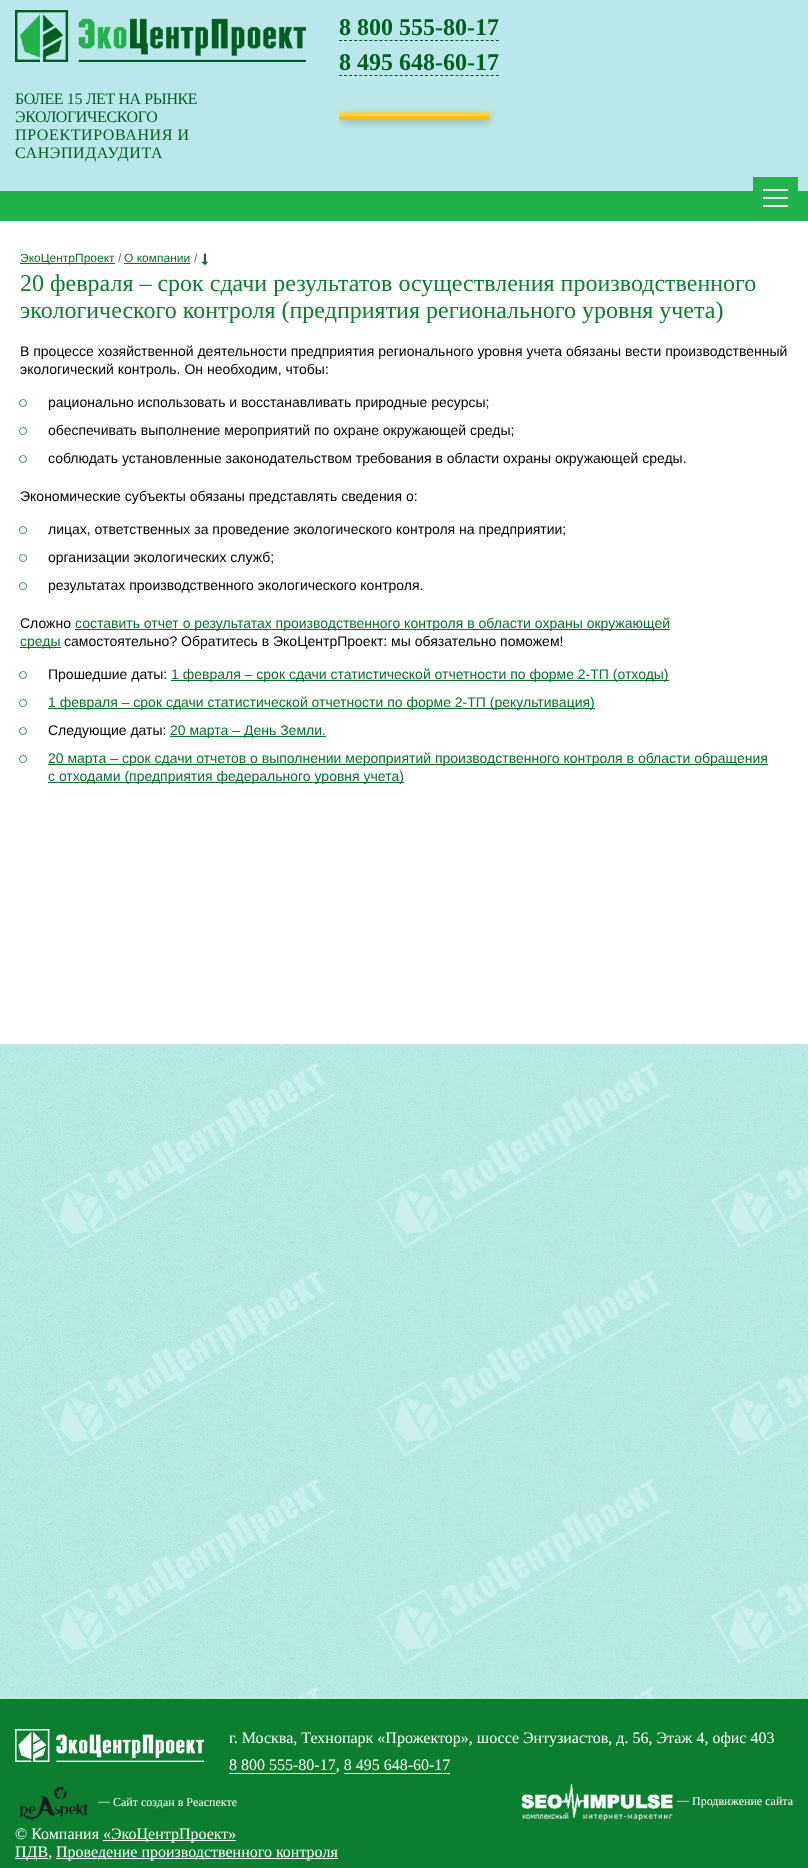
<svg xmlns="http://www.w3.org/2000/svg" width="808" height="1868">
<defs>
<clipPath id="clip1"><rect x="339" y="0" width="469" height="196"/></clipPath>
</defs>
<rect width="100%" height="100%" fill="#fff"/>
<image x="0" y="1044" width="808" height="655" href="media/1.png"/>
<rect width="808" height="191" fill="#bae7ea"/>
<text x="339" y="35" style="font-family:Liberation Serif;font-size:24px;font-weight:bold;fill:#035d21">8 800 555-80-17</text>
<path d="M339 40.5h160" fill="none" stroke="#035d21" stroke-dasharray="3 2.06"/>
<text x="339" y="70" style="font-family:Liberation Serif;font-size:24px;font-weight:bold;fill:#035d21">8 495 648-60-17</text>
<path d="M339 75.5h160" fill="none" stroke="#035d21" stroke-dasharray="3 2.06"/>
<g clip-path="url(#clip1)">
<rect x="343" y="117" width="146" height="4" fill="#68898b" filter="blur(4px)"/>
</g>
<image x="339" y="112" width="150" height="8" href="media/2.png"/>
<image x="15" y="10" width="291" height="52" href="media/3.png"/>
<text x="15" y="104" style="font-family:Liberation Serif;font-size:16px;letter-spacing:-0.4px;fill:#035d21">БОЛЕЕ 15 ЛЕТ НА РЫНКЕ</text>
<text x="15" y="122" style="font-family:Liberation Serif;font-size:16px;letter-spacing:-0.4px;fill:#035d21">ЭКОЛОГИЧЕСКОГО</text>
<text x="15" y="140" style="font-family:Liberation Serif;font-size:16px;letter-spacing:0.6px;fill:#035d21">ПРОЕКТИРОВАНИЯ И</text>
<text x="15" y="158" style="font-family:Liberation Serif;font-size:16px;letter-spacing:0.6px;fill:#035d21">САНЭПИДАУДИТА</text>
<rect y="191" width="808" height="30" fill="#22b24c"/>
<rect x="753" y="177" width="45" height="14" fill="#22b24c"/>
<rect x="763" y="197" width="25" height="2" fill="#fff"/>
<rect x="763" y="189" width="25" height="2" fill="#fff"/>
<rect x="763" y="205" width="25" height="2" fill="#fff"/>
<rect x="20" y="263" width="95" height="1" fill="#07722a"/>
<text x="20" y="262" style="font-family:Liberation Sans;font-size:12px;fill:#07722a">ЭкоЦентрПроект</text>
<text x="118" y="262" style="font-family:Liberation Sans;font-size:12px;fill:#626d66">/</text>
<text x="124" y="262" style="font-family:Liberation Sans;font-size:12px;fill:#07722a">О компании</text>
<rect x="124" y="263" width="66" height="1" fill="#07722a"/>
<text x="194" y="262" style="font-family:Liberation Sans;font-size:12px;fill:#626d66">/</text>
<image x="201" y="253" width="8" height="13" href="media/4.png"/>
<text x="20" y="291" style="font-family:Liberation Serif;font-size:24px;fill:#0c7e30">20 февраля – срок сдачи результатов осуществления производственного</text>
<text x="20" y="318" style="font-family:Liberation Serif;font-size:24px;fill:#0c7e30">экологического контроля (предприятия регионального уровня учета)</text>
<text x="20" y="356" style="font-family:Liberation Sans;font-size:14px;fill:#000">В процессе хозяйственной деятельности предприятия регионального уровня учета обязаны вести производственный</text>
<text x="20" y="374" style="font-family:Liberation Sans;font-size:14px;fill:#000">экологический контроль. Он необходим, чтобы:</text>
<image x="18" y="399" width="10" height="8" href="media/5.png"/>
<text x="48" y="407" style="font-family:Liberation Sans;font-size:14px;fill:#000">рационально использовать и восстанавливать природные ресурсы;</text>
<image x="18" y="427" width="10" height="8" href="media/5.png"/>
<text x="48" y="435" style="font-family:Liberation Sans;font-size:14px;fill:#000">обеспечивать выполнение мероприятий по охране окружающей среды;</text>
<image x="18" y="455" width="10" height="8" href="media/5.png"/>
<text x="48" y="463" style="font-family:Liberation Sans;font-size:14px;fill:#000">соблюдать установленные законодательством требования в области охраны окружающей среды.</text>
<text x="20" y="501" style="font-family:Liberation Sans;font-size:14px;fill:#000">Экономические субъекты обязаны представлять сведения о:</text>
<image x="18" y="526" width="10" height="8" href="media/5.png"/>
<text x="48" y="534" style="font-family:Liberation Sans;font-size:14px;fill:#000">лицах, ответственных за проведение экологического контроля на предприятии;</text>
<image x="18" y="554" width="10" height="8" href="media/5.png"/>
<text x="48" y="562" style="font-family:Liberation Sans;font-size:14px;fill:#000">организации экологических служб;</text>
<image x="18" y="582" width="10" height="8" href="media/5.png"/>
<text x="48" y="590" style="font-family:Liberation Sans;font-size:14px;fill:#000">результатах производственного экологического контроля.</text>
<text x="20" y="628" style="font-family:Liberation Sans;font-size:14px;fill:#000">Сложно</text>
<rect x="75" y="629" width="595" height="1" fill="#07722a"/>
<text x="75" y="628" style="font-family:Liberation Sans;font-size:14px;fill:#07722a">составить отчет о результатах производственного контроля в области охраны окружающей</text>
<rect x="20" y="647" width="41" height="1" fill="#07722a"/>
<text x="20" y="646" style="font-family:Liberation Sans;font-size:14px;fill:#07722a">среды</text>
<text x="64" y="646" style="font-family:Liberation Sans;font-size:14px;fill:#000">самостоятельно? Обратитесь в ЭкоЦентрПроект: мы обязательно поможем!</text>
<image x="18" y="671" width="10" height="8" href="media/5.png"/>
<text x="48" y="679" style="font-family:Liberation Sans;font-size:14px;fill:#000">Прошедшие даты:</text>
<rect x="171" y="680" width="498" height="1" fill="#07722a"/>
<text x="171" y="679" style="font-family:Liberation Sans;font-size:14px;fill:#07722a">1 февраля – срок сдачи статистической отчетности по форме 2-ТП (отходы)</text>
<image x="18" y="699" width="10" height="8" href="media/5.png"/>
<rect x="48" y="708" width="547" height="1" fill="#07722a"/>
<text x="48" y="707" style="font-family:Liberation Sans;font-size:14px;fill:#07722a">1 февраля – срок сдачи статистической отчетности по форме 2-ТП (рекультивация)</text>
<image x="18" y="727" width="10" height="8" href="media/5.png"/>
<text x="48" y="735" style="font-family:Liberation Sans;font-size:14px;fill:#000">Следующие даты:</text>
<rect x="170" y="736" width="156" height="1" fill="#07722a"/>
<text x="170" y="735" style="font-family:Liberation Sans;font-size:14px;fill:#07722a">20 марта – День Земли.</text>
<image x="18" y="755" width="10" height="8" href="media/5.png"/>
<rect x="48" y="764" width="720" height="1" fill="#07722a"/>
<text x="48" y="763" style="font-family:Liberation Sans;font-size:14px;fill:#07722a">20 марта – срок сдачи отчетов о выполнении мероприятий производственного контроля в области обращения</text>
<rect x="48" y="782" width="356" height="1" fill="#07722a"/>
<text x="48" y="781" style="font-family:Liberation Sans;font-size:14px;fill:#07722a">с отходами (предприятия федерального уровня учета)</text>
<rect y="1699" width="808" height="169" fill="#0c7e30"/>
<image x="15" y="1729" width="189" height="33" href="media/6.png"/>
<text x="229" y="1743" style="font-family:Liberation Serif;font-size:16px;fill:#fff">г. Москва, Технопарк «Прожектор», шоссе Энтузиастов, д. 56, Этаж 4, офис 403</text>
<text x="229" y="1770" style="font-family:Liberation Serif;font-size:16px;fill:#fff">8 800 555-80-17, 8 495 648-60-17</text>
<rect x="229" y="1773" width="107" height="1" fill="#fff"/>
<rect x="344" y="1773" width="106" height="1" fill="#fff"/>
<image x="19" y="1787" width="70" height="33" href="media/7.png"/>
<text x="98" y="1805" style="font-family:Liberation Serif;font-size:12px;fill:#fff">—</text>
<text x="113" y="1806" style="font-family:Liberation Serif;font-size:12px;fill:#fff">Сайт создан в Реаспекте</text>
<image x="521" y="1784" width="152" height="37" href="media/8.png"/>
<text x="677" y="1804" style="font-family:Liberation Serif;font-size:12px;fill:#fff">—</text>
<text x="692" y="1805" style="font-family:Liberation Serif;font-size:12px;fill:#fff">Продвижение сайта</text>
<text x="15" y="1839" style="font-family:Liberation Serif;font-size:16px;fill:#fff">© Компания</text>
<rect x="103" y="1840" width="133" height="1" fill="#fff"/>
<text x="103" y="1839" style="font-family:Liberation Serif;font-size:16px;fill:#fff">«ЭкоЦентрПроект»</text>
<rect x="15" y="1858" width="33" height="1" fill="#fff"/>
<text x="15" y="1857" style="font-family:Liberation Serif;font-size:16px;fill:#fff">ПДВ,</text>
<rect x="56" y="1858" width="282" height="1" fill="#fff"/>
<text x="56" y="1857" style="font-family:Liberation Serif;font-size:16px;fill:#fff">Проведение производственного контроля</text>
</svg>
